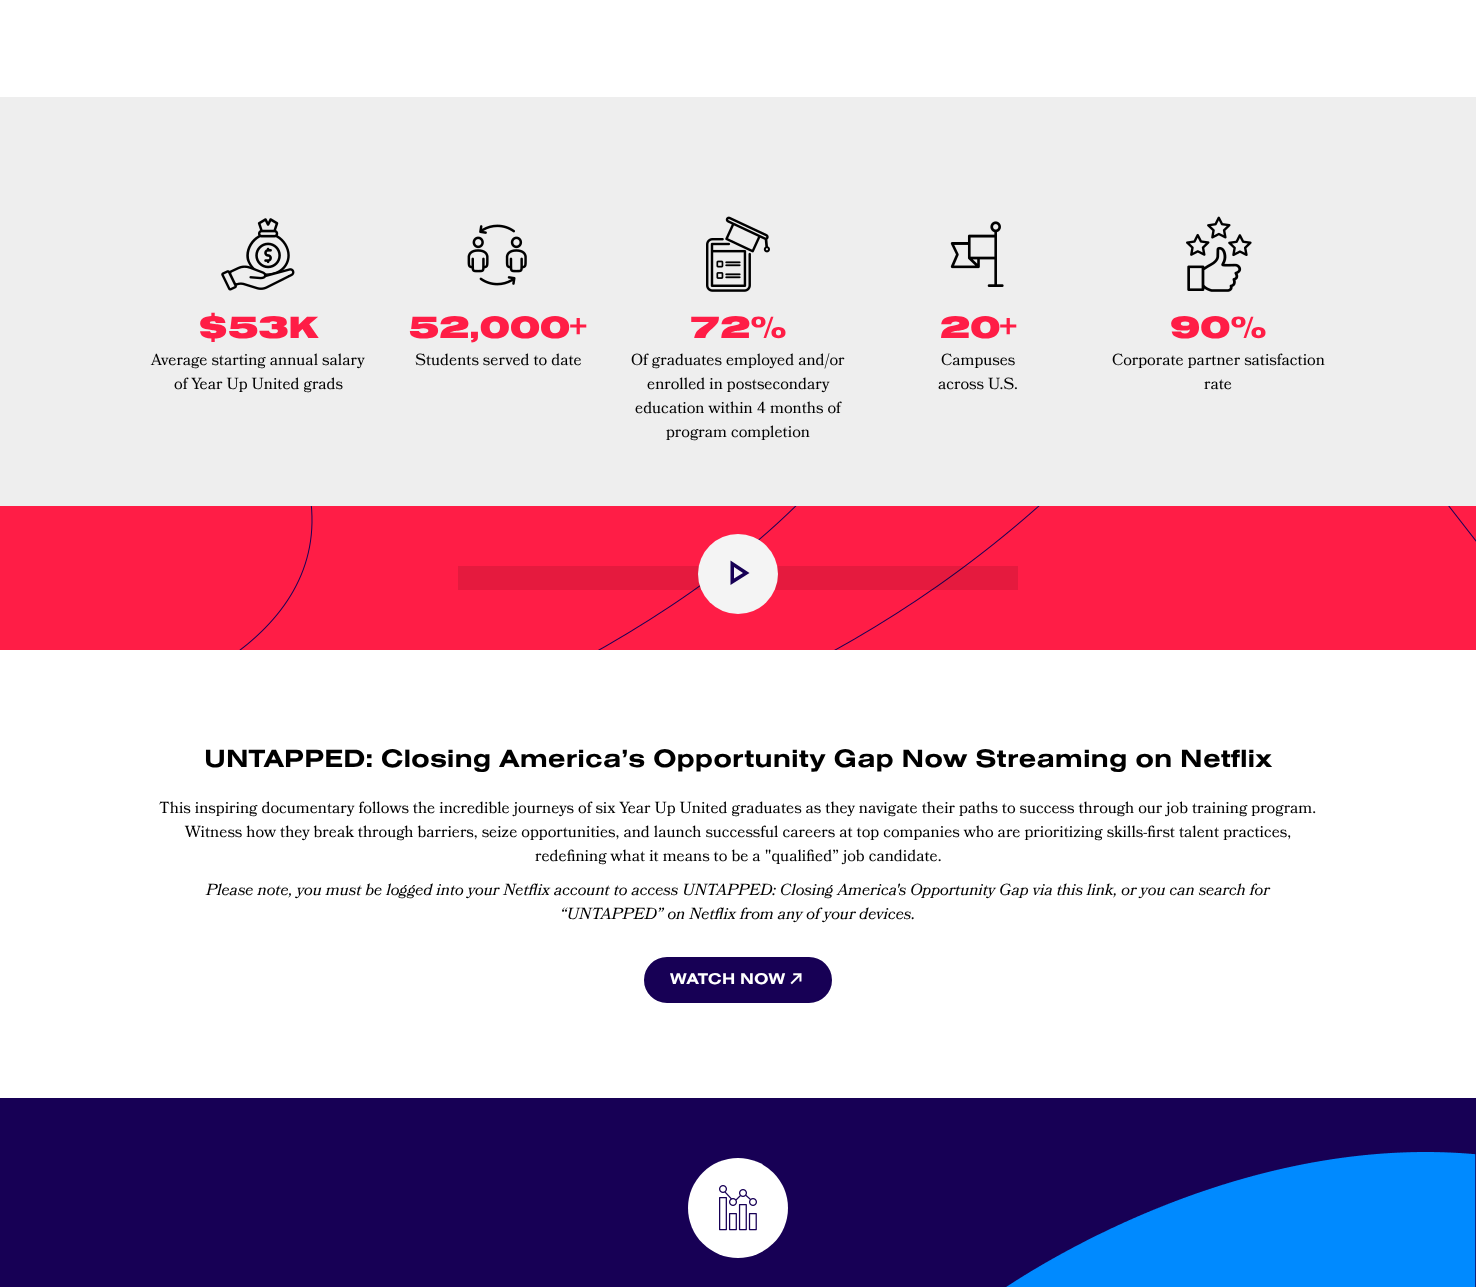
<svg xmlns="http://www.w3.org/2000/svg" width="1476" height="1287">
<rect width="100%" height="100%" fill="#fff"/>
<rect y="97" width="1476" height="409" fill="#eee"/>
<image x="221" y="218" width="74" height="73" href="media/1.png"/>
<text x="198" y="338" style="font-family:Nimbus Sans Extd;font-size:32px;font-weight:900;fill:#ff1d46">$53K</text>
<text x="151" y="365" style="font-family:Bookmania;font-size:16px;fill:#000">Average starting annual salary</text>
<text x="174" y="389" style="font-family:Bookmania;font-size:16px;fill:#000">of Year Up United grads</text>
<image x="467" y="224" width="60" height="62" href="media/2.png"/>
<text x="409" y="338" style="font-family:Nimbus Sans Extd;font-size:32px;font-weight:900;fill:#ff1d46">52,000+</text>
<text x="415" y="365" style="font-family:Bookmania;font-size:16px;fill:#000">Students served to date</text>
<image x="706" y="216" width="64" height="76" href="media/3.png"/>
<text x="690" y="338" style="font-family:Nimbus Sans Extd;font-size:32px;font-weight:900;fill:#ff1d46">72%</text>
<text x="631" y="365" style="font-family:Bookmania;font-size:16px;fill:#000">Of graduates employed and/or</text>
<text x="647" y="389" style="font-family:Bookmania;font-size:16px;fill:#000">enrolled in postsecondary</text>
<text x="635" y="413" style="font-family:Bookmania;font-size:16px;fill:#000">education within 4 months of</text>
<text x="666" y="437" style="font-family:Bookmania;font-size:16px;fill:#000">program completion</text>
<image x="950" y="221" width="54" height="66" href="media/4.png"/>
<text x="940" y="338" style="font-family:Nimbus Sans Extd;font-size:32px;font-weight:900;fill:#ff1d46">20+</text>
<text x="941" y="365" style="font-family:Bookmania;font-size:16px;fill:#000">Campuses</text>
<text x="938" y="389" style="font-family:Bookmania;font-size:16px;fill:#000">across U.S.</text>
<image x="1186" y="216" width="66" height="76" href="media/5.png"/>
<text x="1170" y="338" style="font-family:Nimbus Sans Extd;font-size:32px;font-weight:900;fill:#ff1d46">90%</text>
<text x="1112" y="365" style="font-family:Bookmania;font-size:16px;fill:#000">Corporate partner satisfaction</text>
<text x="1204" y="389" style="font-family:Bookmania;font-size:16px;fill:#000">rate</text>
<image x="0" y="506" width="1476" height="144" href="media/6.png"/>
<rect x="458" y="566" width="560" height="24" fill="#0000001a"/>
<circle cx="738" cy="574" r="40" fill="#f4f4f4"/>
<path d="M730.5 585v-24.5l19 12.5zm3.5-6.5l9-5.5l-9-6z" fill="#170055"/>
<text x="204" y="767" style="font-family:Nimbus Sans Extd;font-size:26px;font-weight:bold;fill:#000">UNTAPPED: Closing America’s Opportunity Gap Now Streaming on Netflix</text>
<text x="159" y="813" style="font-family:Bookmania;font-size:16px;fill:#000">This inspiring documentary follows the incredible journeys of six Year Up United graduates as they navigate their paths to success through our job training program.</text>
<text x="185" y="837" style="font-family:Bookmania;font-size:16px;fill:#000">Witness how they break through barriers, seize opportunities, and launch successful careers at top companies who are prioritizing skills-first talent practices,</text>
<text x="535" y="861" style="font-family:Bookmania;font-size:16px;fill:#000">redefining what it means to be a "qualified” job candidate.</text>
<text x="206" y="895" style="font-family:Bookmania;font-size:16px;font-style:italic;fill:#000">Please note, you must be logged into your Netflix account to access UNTAPPED: Closing America's Opportunity Gap via this link, or you can search for</text>
<text x="560" y="919" style="font-family:Bookmania;font-size:16px;font-style:italic;fill:#000">“UNTAPPED” on Netflix from any of your devices.</text>
<rect x="645" y="958" width="186" height="44" rx="22" fill="#170055" stroke="#170055" stroke-width="2"/>
<text x="670" y="984" style="font-family:Nimbus Sans Extd;font-size:16px;font-weight:bold;fill:#fff">WATCH NOW</text>
<image x="790" y="973" width="12" height="12" href="media/7.png"/>
<rect y="1098" width="1476" height="189" fill="#170055"/>
<image x="1006" y="1152" width="470" height="135" href="media/8.png"/>
<circle cx="738" cy="1208" r="50" fill="#fff"/>
<image x="719" y="1185" width="38" height="46" href="media/9.png"/>
</svg>
